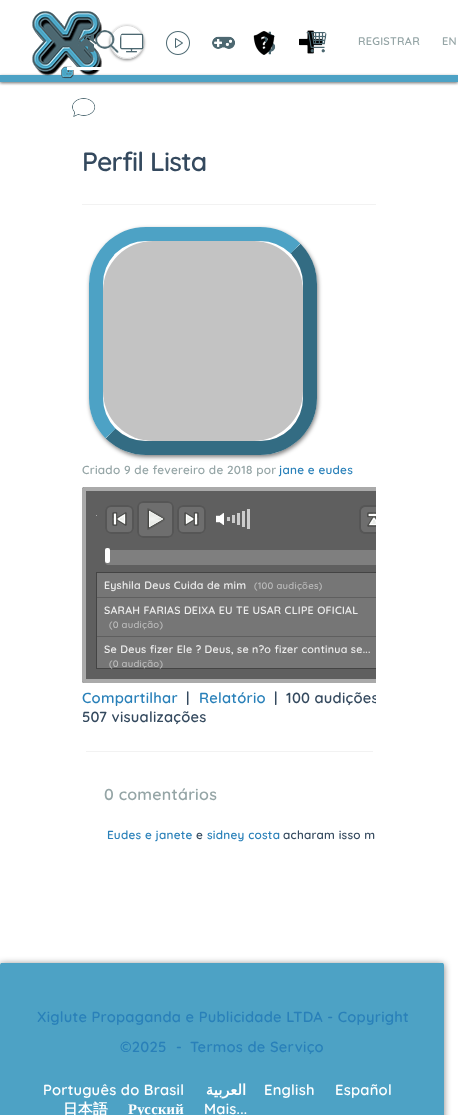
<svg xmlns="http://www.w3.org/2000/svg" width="458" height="1115">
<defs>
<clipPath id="clip1"><rect x="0" y="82" width="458" height="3"/></clipPath>
<clipPath id="clip2"><path d="M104 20h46v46h-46zm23 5c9.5 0 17 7.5 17 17c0 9.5-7.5 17-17 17c-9.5 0-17-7.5-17-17c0-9.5 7.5-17 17-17z" clip-rule="evenodd"/></clipPath>
<clipPath id="clip3"><path d="M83 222h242v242h-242zm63 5h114c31.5 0 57 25.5 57 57v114c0 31.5-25.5 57-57 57h-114c-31.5 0-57-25.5-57-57v-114c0-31.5 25.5-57 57-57z" clip-rule="evenodd"/></clipPath>
<clipPath id="clip4"><rect x="82" y="126" width="294" height="758" rx="7"/></clipPath>
</defs>
<rect width="100%" height="100%" fill="#fff"/>
<g clip-path="url(#clip1)">
<rect y="-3" width="458" height="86" fill="#0000001a" filter="blur(2.5px)"/>
</g>
<rect y="76" width="458" height="7" fill="#00000080" filter="blur(1.5px)"/>
<rect y="75" width="458" height="7" fill="#4da2c5"/>
<image x="32" y="11" width="70" height="68" href="media/1.png"/>
<g clip-path="url(#clip2)">
<rect x="110" y="26" width="34" height="34" rx="17" fill="#00000080" filter="blur(1.5px)"/>
</g>
<circle cx="127" cy="42" r="16.5" fill="none" stroke="#ddd"/>
<image x="95" y="30" width="24" height="24" href="media/2.png"/>
<image x="299" y="30" width="24" height="24" href="media/3.png"/>
<image x="166" y="31" width="24" height="24" href="media/4.png"/>
<image x="264" y="31" width="12" height="24" href="media/9.png"/>
<image x="253" y="31" width="22" height="24" href="media/5.png"/>
<rect x="67" y="67" width="38" height="3" fill="#fff"/>
<image x="79" y="34" width="18" height="18" href="media/6.png"/>
<image x="120" y="33" width="24" height="20" href="media/7.png"/>
<image x="212" y="36" width="23" height="13" href="media/8.png"/>
<image x="306" y="32" width="21" height="21" href="media/10.png"/>
<text x="358" y="45" style="font-family:Quicksand;font-size:11px;font-weight:600;letter-spacing:0.25px;fill:#95a5a6">REGISTRAR</text>
<text x="442" y="45" style="font-family:Quicksand;font-size:11px;font-weight:600;letter-spacing:0.25px;fill:#95a5a6">EN</text>
<image x="72" y="98" width="24" height="19" href="media/11.png"/>
<text x="82" y="171" style="font-family:Quicksand;font-size:26.5px;font-weight:600;letter-spacing:-0.75px;fill:#34495e">Perfil Lista</text>
<rect x="82" y="204" width="294" height="1" fill="#f2f2f2"/>
<g clip-path="url(#clip3)">
<rect x="90" y="229" width="228" height="228" rx="57" fill="#00000080" filter="blur(2px)"/>
</g>
<path d="M295.5 248.5c9 9.5 14.5 22 14.5 35.5v114c0 13.5-5.5 26-14.5 35.5c-9.5 9-22 14.5-35.5 14.5h-114c-13.5 0-26-5.5-35.5-14.5" fill="none" stroke="#336c83" stroke-width="14"/>
<path d="M110.5 433.5c-9-9.5-14.5-22-14.5-35.5v-114c0-13.5 5.5-26 14.5-35.5c9.5-9 22-14.5 35.5-14.5h114c13.5 0 26 5.5 35.5 14.5" fill="none" stroke="#4da2c5" stroke-width="14"/>
<image x="103" y="241" width="200" height="200" href="media/12.png"/>
<text x="82" y="474" style="font-family:Quicksand;font-size:11.75px;font-weight:600;letter-spacing:0.25px;fill:#95a5a6">Criado 9 de fevereiro de 2018 por</text>
<text x="279" y="474" style="font-family:Quicksand;font-size:11.75px;font-weight:600;letter-spacing:0.25px;fill:#2980b9">jane e eudes</text>
<path d="M84 487h292v196h-292c-1 0-2-1-2-2v-192c0-1 1-2 2-2z" fill="#5f5f5f"/>
<path d="M84 487c-1 0-2 1-2 2v192c0 1 1 2 2 2h292v-4h-290v-188h290v-4z" fill="#aaa"/>
<rect x="96" y="515" width="1" height="1" fill="#aaa"/>
<rect x="105" y="505" width="29" height="29" rx="6" fill="#6e6e6e"/>
<image x="112" y="512" width="15" height="14" href="media/13.png"/>
<rect x="106" y="506" width="27" height="27" rx="5" fill="none" stroke="#565656" stroke-width="2"/>
<rect x="137" y="501" width="37" height="37" rx="6" fill="#6e6e6e"/>
<image x="147" y="508" width="18" height="22" href="media/14.png"/>
<rect x="138" y="502" width="35" height="35" rx="5" fill="none" stroke="#565656" stroke-width="2"/>
<rect x="177" y="505" width="29" height="29" rx="6" fill="#6e6e6e"/>
<image x="184" y="512" width="15" height="14" href="media/15.png"/>
<rect x="178" y="506" width="27" height="27" rx="5" fill="none" stroke="#565656" stroke-width="2"/>
<image x="216" y="513" width="8" height="12" href="media/16.png"/>
<rect x="227" y="517" width="3" height="4" fill="#ccc"/>
<rect x="232" y="515" width="3" height="8" fill="#ccc"/>
<rect x="237" y="513" width="3" height="12" fill="#ccc"/>
<rect x="242" y="511" width="3" height="16" fill="#ccc"/>
<rect x="247" y="509" width="3" height="20" fill="#ccc"/>
<path d="M365 505h11v29h-11c-3.5 0-6-2.5-6-6v-17c0-3.5 2.5-6 6-6z" fill="#6e6e6e"/>
<image x="367" y="512" width="9" height="15" href="media/17.png"/>
<path d="M365 505c-3.5 0-6 2.5-6 6v17c0 3.5 2.5 6 6 6h11v-2h-11c-2 0-4-2-4-4v-17c0-2 2-4 4-4h11v-2z" fill="#565656"/>
<path d="M108 550h268v15h-268c-1.5 0-3-1.5-3-3v-9c0-1.5 1.5-3 3-3z" fill="#7f7f7f"/>
<rect x="105" y="548" width="5" height="15" rx="2" fill="#fff"/>
<path d="M96 572v97h280v-1h-279v-95h279v-1z" fill="#444"/>
<rect x="97" y="573" width="279" height="24" fill="#767676"/>
<text x="104" y="589" style="font-family:Quicksand;font-size:10.7px;font-weight:600;letter-spacing:0.25px;fill:#eee">Eyshila Deus Cuida de mim</text>
<text x="254" y="589" style="font-family:Quicksand;font-size:9.5px;font-weight:600;letter-spacing:0.25px;fill:#bbb">(100 audições)</text>
<rect x="97" y="598" width="279" height="38" fill="#767676"/>
<text x="104" y="614" style="font-family:Quicksand;font-size:10.7px;font-weight:600;letter-spacing:0.25px;fill:#eee">SARAH FARIAS DEIXA EU TE USAR CLIPE OFICIAL</text>
<text x="109" y="628" style="font-family:Quicksand;font-size:9.5px;font-weight:600;letter-spacing:0.25px;fill:#bbb">(0 audição)</text>
<rect x="97" y="637" width="279" height="31" fill="#767676"/>
<text x="104" y="653" style="font-family:Quicksand;font-size:10.7px;font-weight:600;letter-spacing:0.25px;fill:#eee">Se Deus fizer Ele ? Deus, se n?o fizer continua se...</text>
<text x="109" y="667" style="font-family:Quicksand;font-size:9.5px;font-weight:600;letter-spacing:0.25px;fill:#bbb">(0 audição)</text>
<text x="82" y="703" style="font-family:Quicksand;font-size:14.7px;font-weight:600;letter-spacing:0.25px;fill:#2980b9">Compartilhar</text>
<text x="186" y="703" style="font-family:Quicksand;font-size:14.7px;font-weight:600;letter-spacing:0.25px;fill:#34495e">|</text>
<text x="199" y="703" style="font-family:Quicksand;font-size:14.7px;font-weight:600;letter-spacing:0.25px;fill:#2980b9">Relatório</text>
<text x="274" y="703" style="font-family:Quicksand;font-size:14.7px;font-weight:600;letter-spacing:0.25px;fill:#34495e">|</text>
<g clip-path="url(#clip4)">
<text x="286" y="703" style="font-family:Quicksand;font-size:14.7px;font-weight:600;letter-spacing:0.25px;fill:#34495e">100 audições</text>
</g>
<text x="82" y="722" style="font-family:Quicksand;font-size:14.7px;font-weight:600;letter-spacing:0.25px;fill:#34495e">507 visualizações</text>
<rect x="86" y="751" width="287" height="1" fill="#f2f2f2"/>
<text x="104" y="800" style="font-family:Quicksand;font-size:16px;font-weight:600;letter-spacing:0.25px;fill:#95a5a6">0 comentários</text>
<text x="107" y="839" style="font-family:Quicksand;font-size:11.75px;font-weight:600;letter-spacing:0.25px;fill:#2980b9">Eudes e janete</text>
<text x="196" y="839" style="font-family:Quicksand;font-size:11.75px;font-weight:600;letter-spacing:0.25px;fill:#34495e">e</text>
<text x="207" y="839" style="font-family:Quicksand;font-size:11.75px;font-weight:600;letter-spacing:0.25px;fill:#2980b9">sidney costa</text>
<text x="283" y="839" style="font-family:Quicksand;font-size:11.75px;font-weight:600;letter-spacing:0.25px;fill:#34495e">acharam isso m</text>
<rect y="964" width="444" height="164" rx="2" fill="#00000080" filter="blur(3.5px)"/>
<rect y="963" width="444" height="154" rx="2" fill="#4da2c5"/>
<rect x="1" y="963" width="442" height="1" fill="#4da2c5"/>
<text x="37" y="1022" style="font-family:Quicksand;font-size:14.7px;font-weight:600;letter-spacing:0.25px;fill:#2980b9">Xiglute Propaganda e Publicidade LTDA - Copyright</text>
<text x="120" y="1052" style="font-family:Quicksand;font-size:14.7px;font-weight:600;letter-spacing:0.25px;fill:#2980b9">©2025</text>
<text x="176" y="1052" style="font-family:Quicksand;font-size:14.7px;font-weight:600;letter-spacing:0.25px;fill:#2980b9">-</text>
<text x="190" y="1052" style="font-family:Quicksand;font-size:14.7px;font-weight:600;letter-spacing:0.25px;fill:#2980b9">Termos de Serviço</text>
<text x="43" y="1095" style="font-family:Quicksand;font-size:14.7px;font-weight:600;letter-spacing:0.25px;fill:#fff">Português do Brasil</text>
<text x="246" y="1095" style="font-family:DejaVu Sans;font-size:14.7px;font-weight:bold;letter-spacing:0.25px;direction:rtl;fill:#fff">العربية</text>
<text x="264" y="1095" style="font-family:Quicksand;font-size:14.7px;font-weight:600;letter-spacing:0.25px;fill:#fff">English</text>
<text x="335" y="1095" style="font-family:Quicksand;font-size:14.7px;font-weight:600;letter-spacing:0.25px;fill:#fff">Español</text>
<text x="63" y="1114" style="font-family:WenQuanYi Zen Hei;font-size:14.7px;font-weight:bold;letter-spacing:0.25px;fill:#fff">日本語</text>
<text x="128" y="1114" style="font-family:Liberation Serif;font-size:14.7px;font-weight:bold;letter-spacing:0.25px;fill:#fff">Русский</text>
<text x="204" y="1114" style="font-family:Quicksand;font-size:14.7px;font-weight:600;letter-spacing:0.25px;fill:#fff">Mais...</text>
</svg>
